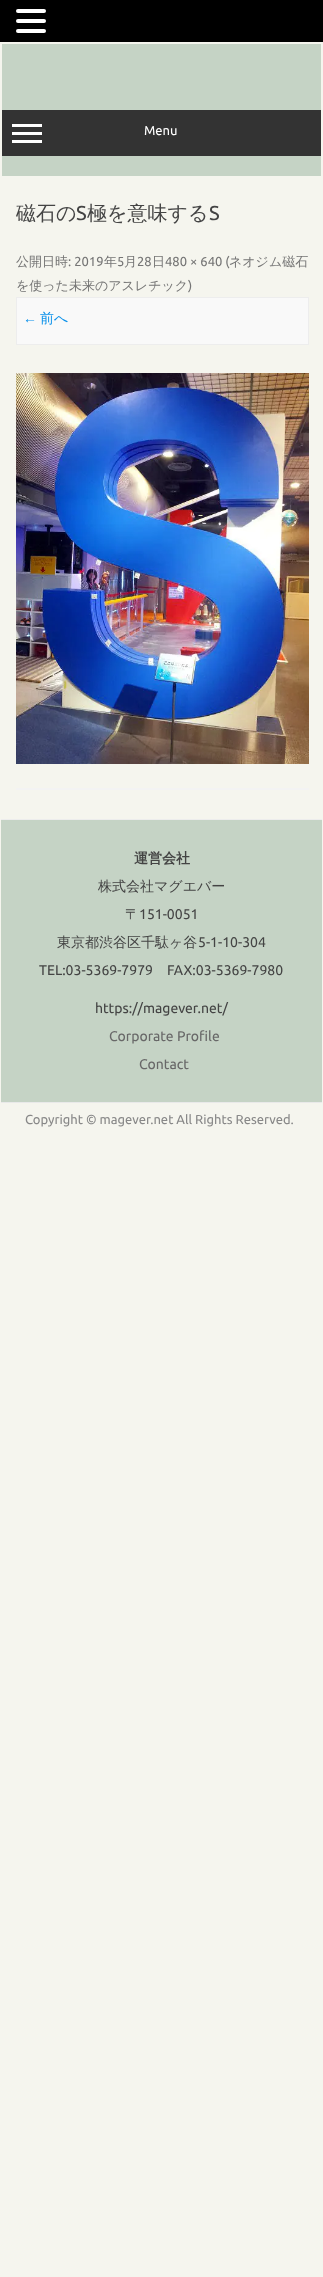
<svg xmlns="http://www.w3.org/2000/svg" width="323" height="2277">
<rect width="100%" height="100%" fill="#f5f5ee"/>
<rect width="323" height="42" fill="#000"/>
<rect x="16" y="9" width="30" height="4" rx="2" fill="#fff"/>
<rect x="16" y="19" width="30" height="4" rx="2" fill="#fff"/>
<rect x="16" y="29" width="30" height="4" rx="2" fill="#fff"/>
<rect x="2" y="44" width="319" height="132" fill="#c5d3c5"/>
<rect x="2" y="110" width="319" height="46" fill="#333"/>
<rect x="12" y="124" width="30" height="3" fill="#fff"/>
<rect x="12" y="132" width="30" height="3" fill="#fff"/>
<rect x="12" y="140" width="30" height="3" fill="#fff"/>
<text x="144" y="135" style="font-family:Ubuntu;font-size:13px;fill:#fff">Menu</text>
<rect x="16" y="788" width="293" height="2" fill="#f3f3f3"/>
<text x="16" y="220" style="font-family:WenQuanYi Zen Hei;font-size:20px;font-weight:500;fill:#444">磁石の</text>
<text x="76" y="220" style="font-family:Ubuntu;font-size:20px;fill:#444">S</text>
<text x="87" y="220" style="font-family:WenQuanYi Zen Hei;font-size:20px;font-weight:500;fill:#444">極を意味する</text>
<text x="209" y="220" style="font-family:Ubuntu;font-size:20px;fill:#444">S</text>
<text x="16" y="266" style="font-family:WenQuanYi Zen Hei;font-size:13px;font-weight:500;fill:#757575">公開日時</text>
<text x="68" y="266" style="font-family:Ubuntu;font-size:13px;fill:#757575">: 2019</text>
<text x="104" y="266" style="font-family:WenQuanYi Zen Hei;font-size:13px;font-weight:500;fill:#757575">年</text>
<text x="117" y="266" style="font-family:Ubuntu;font-size:13px;fill:#757575">5</text>
<text x="124" y="266" style="font-family:WenQuanYi Zen Hei;font-size:13px;font-weight:500;fill:#757575">月</text>
<text x="137" y="266" style="font-family:Ubuntu;font-size:13px;fill:#757575">28</text>
<text x="152" y="266" style="font-family:WenQuanYi Zen Hei;font-size:13px;font-weight:500;fill:#757575">日</text>
<text x="165" y="266" style="font-family:Ubuntu;font-size:13px;fill:#757575">480 × 640 (</text>
<text x="229" y="266" style="font-family:WenQuanYi Zen Hei;font-size:13px;font-weight:500;fill:#757575">ネオジム磁石</text>
<text x="16" y="290" style="font-family:WenQuanYi Zen Hei;font-size:13px;font-weight:500;fill:#757575">を使った未来のアスレチック</text>
<text x="188" y="290" style="font-family:Ubuntu;font-size:13px;fill:#757575">)</text>
<rect x="16.5" y="297.5" width="292" height="47" fill="#f9f9f9" stroke="#ededed"/>
<text x="23" y="323" style="font-family:Liberation Sans;font-size:14px;fill:#0b91ea">←</text>
<text x="40" y="323" style="font-family:WenQuanYi Zen Hei;font-size:14px;font-weight:500;fill:#0b91ea">前へ</text>
<image x="16" y="373" width="293" height="391" href="media/1.png"/>
<rect x="1" y="820" width="321" height="282" fill="#c5d3c5"/>
<rect x="1" y="819" width="321" height="1" fill="#ededed"/>
<rect x="1" y="1102" width="321" height="1" fill="#e9e9e9"/>
<text x="134" y="863" style="font-family:WenQuanYi Zen Hei;font-size:14px;font-weight:bold;fill:#444">運営会社</text>
<text x="98" y="891" style="font-family:WenQuanYi Zen Hei;font-size:14px;font-weight:500;fill:#444">株式会社マグエバー</text>
<text x="125" y="919" style="font-family:WenQuanYi Zen Hei;font-size:14px;font-weight:500;fill:#444">〒</text>
<text x="139" y="919" style="font-family:Ubuntu;font-size:14px;fill:#444">151-0051</text>
<text x="57" y="947" style="font-family:WenQuanYi Zen Hei;font-size:14px;font-weight:500;fill:#444">東京都渋谷区千駄ヶ谷</text>
<text x="198" y="947" style="font-family:Ubuntu;font-size:14px;fill:#444">5-1-10-304</text>
<text x="39" y="975" style="font-family:Ubuntu;font-size:14px;fill:#444">TEL:03-5369-7979</text>
<text x="167" y="975" style="font-family:Ubuntu;font-size:14px;fill:#444">FAX:03-5369-7980</text>
<text x="95" y="1013" style="font-family:Ubuntu;font-size:14px;fill:#444">https://magever.net/</text>
<text x="109" y="1041" style="font-family:Ubuntu;font-size:14px;fill:#686868">Corporate Profile</text>
<text x="139" y="1069" style="font-family:Ubuntu;font-size:14px;fill:#686868">Contact</text>
<text x="25" y="1124" style="font-family:Ubuntu;font-size:13px;fill:#888">Copyright © magever.net All Rights Reserved.</text>
</svg>
